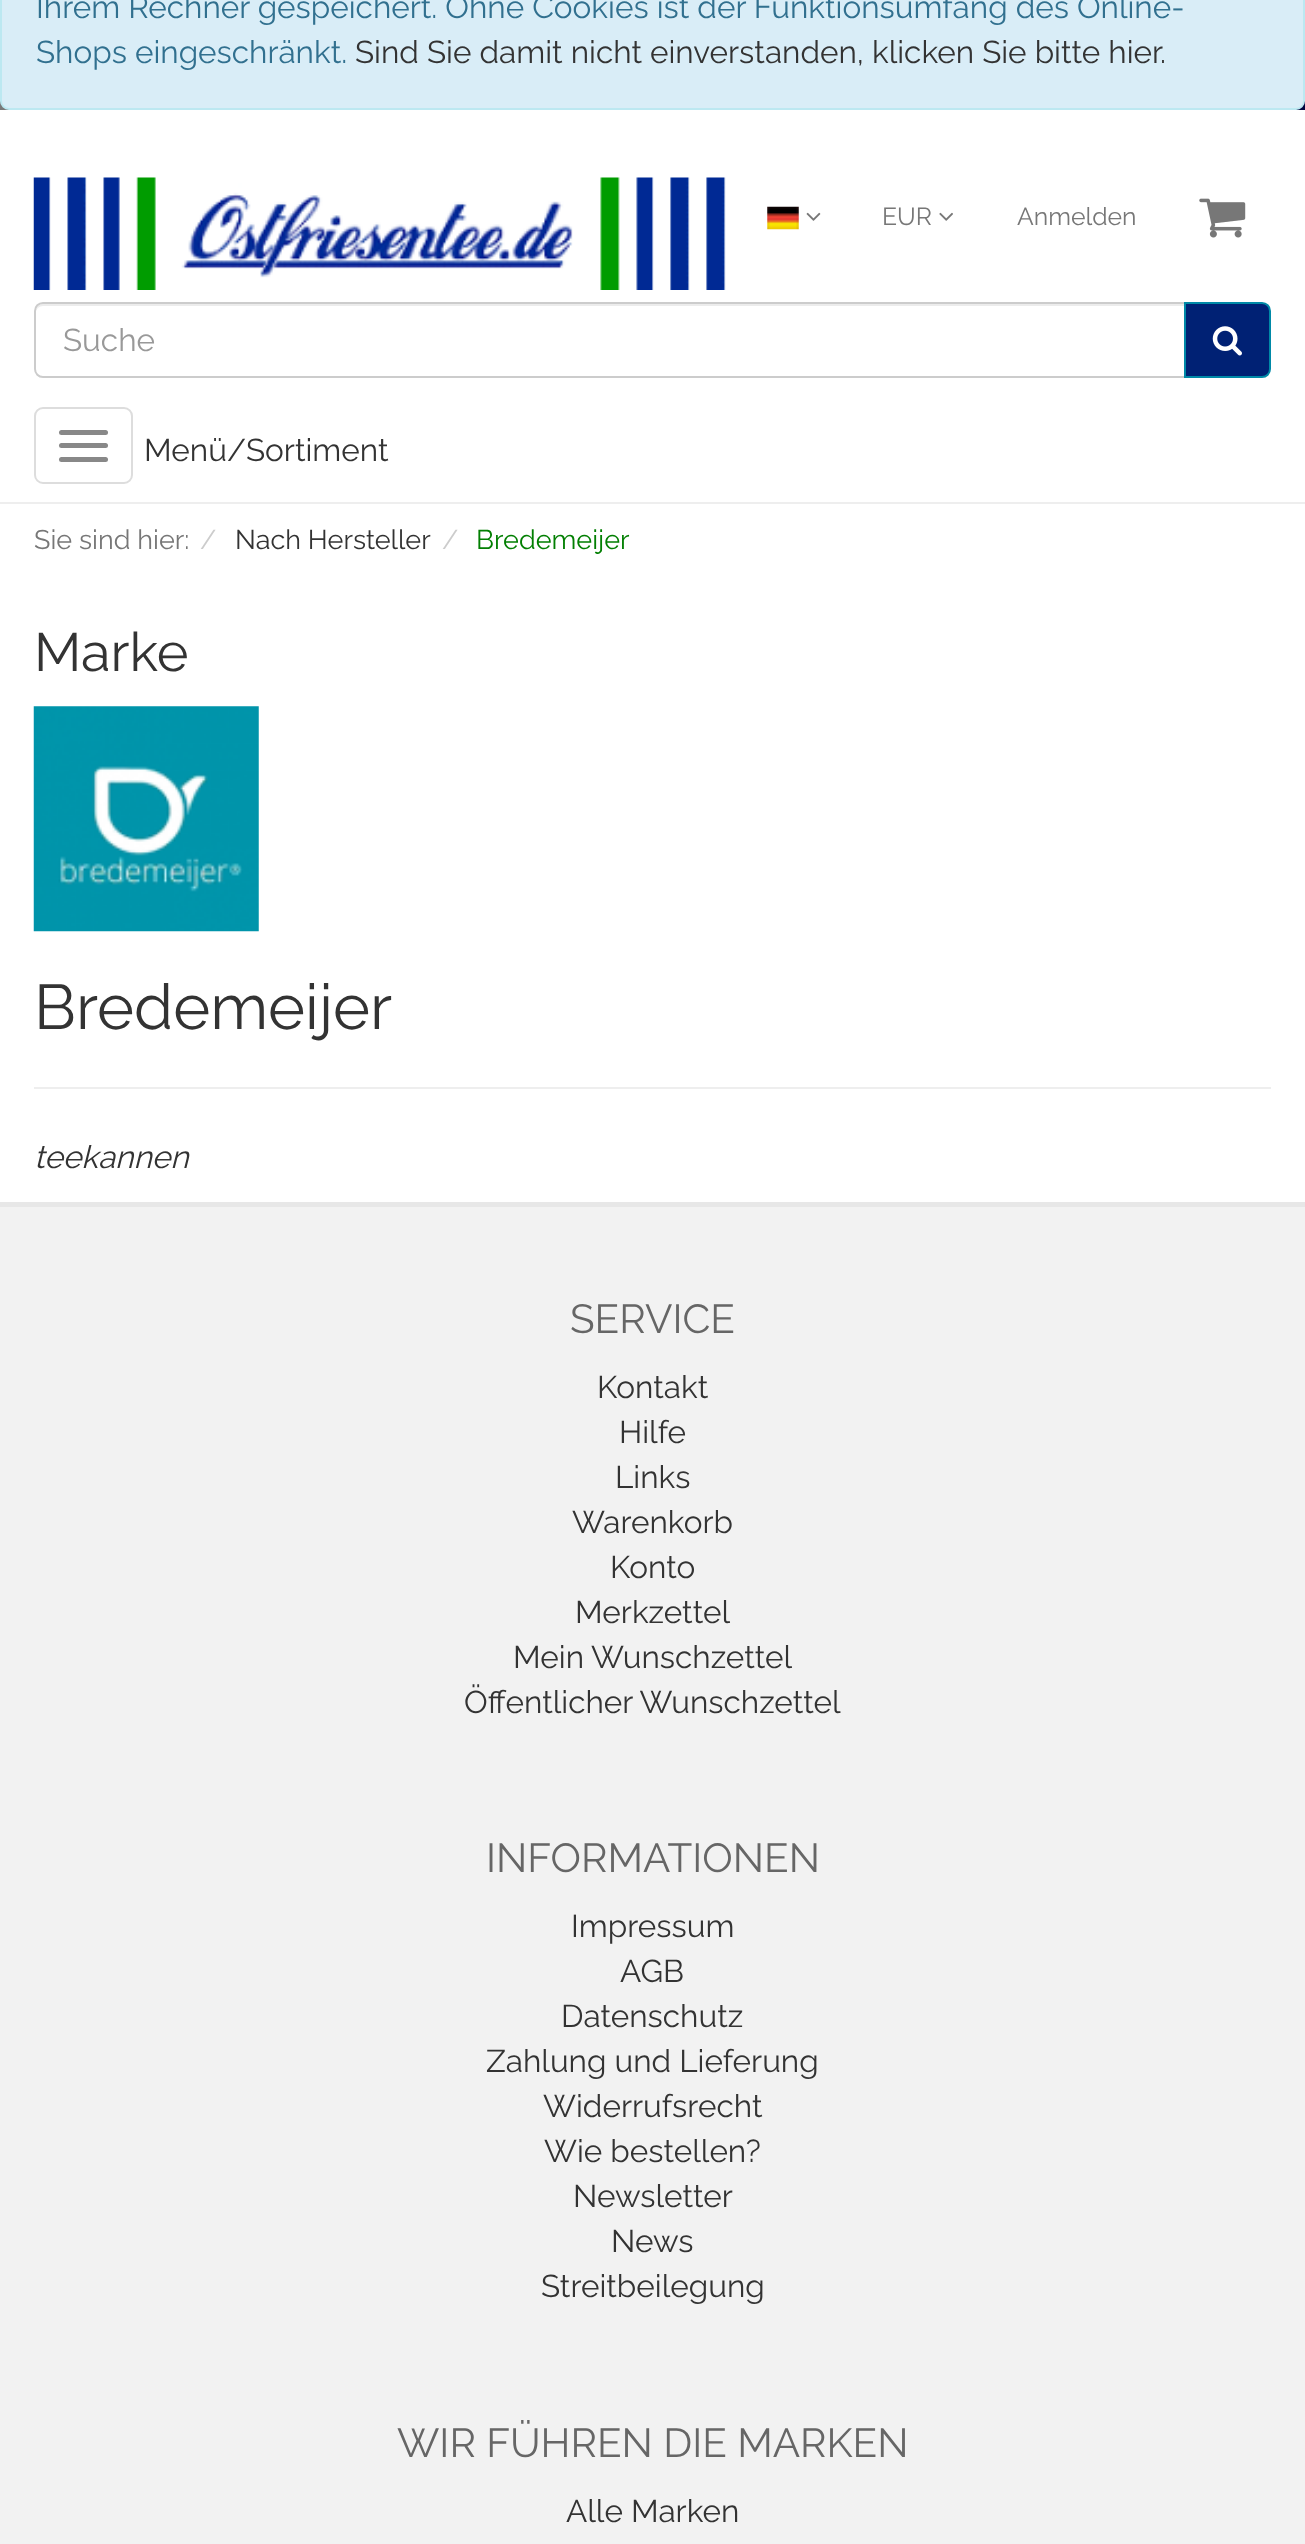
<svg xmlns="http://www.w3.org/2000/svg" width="1305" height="2544">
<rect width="100%" height="100%" fill="#fff"/>
<image x="0" y="101" width="1305" height="9" href="media/1.png"/>
<rect x="1" y="-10" width="1303" height="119" rx="8" fill="#d9edf7" stroke="#bce8f1" stroke-width="2"/>
<text x="36" y="18" style="font-family:Raleway;font-size:31.5px;fill:#31708f">Ihrem Rechner gespeichert. Ohne Cookies ist der Funktionsumfang des Online-</text>
<text x="36" y="63" style="font-family:Raleway;font-size:31.5px;fill:#31708f">Shops eingeschränkt.</text>
<text x="355" y="63" style="font-family:Raleway;font-size:31.5px;fill:#333">Sind Sie damit nicht einverstanden, klicken Sie bitte hier.</text>
<image x="33" y="177" width="693" height="113" href="media/2.png"/>
<image x="767" y="206" width="32" height="24" href="media/3.png"/>
<image x="806" y="212" width="15" height="9" href="media/4.png"/>
<text x="882" y="225" style="font-family:Raleway;font-size:24.75px;fill:#777">EUR</text>
<image x="939" y="212" width="14" height="9" href="media/5.png"/>
<text x="1017" y="225" style="font-family:Raleway;font-size:24.75px;fill:#777">Anmelden</text>
<image x="1199" y="198" width="47" height="40" href="media/6.png"/>
<path d="M43 306h1141v-2h-1141c-5 0-7 5-7 9c0-4 3-7 7-7z" fill="#ececec"/>
<path d="M43 303h1142v74h-1142c-4.5 0-8-3.5-8-8v-58c0-4.5 3.5-8 8-8z" fill="none" stroke="#ccc" stroke-width="2"/>
<text x="63" y="351" style="font-family:Raleway;font-size:31.5px;fill:#999">Suche</text>
<path d="M1185 303h77c4.5 0 8 3.5 8 8v58c0 4.5-3.5 8-8 8h-77z" fill="#002174" stroke="#0089a7" stroke-width="2"/>
<image x="1212" y="326" width="30" height="30" href="media/7.png"/>
<rect y="502" width="1305" height="2" fill="#eee"/>
<rect x="35" y="408" width="97" height="75" rx="8" fill="none" stroke="#ddd" stroke-width="2"/>
<rect x="59" y="430" width="49" height="5" rx="2.5" fill="#888"/>
<rect x="59" y="443" width="49" height="5" rx="2.5" fill="#888"/>
<rect x="59" y="457" width="49" height="5" rx="2.5" fill="#888"/>
<text x="144" y="461" style="font-family:Raleway;font-size:31.5px;fill:#333">Menü/Sortiment</text>
<text x="34" y="549" style="font-family:Raleway;font-size:27px;fill:#777">Sie sind hier:</text>
<text x="200" y="549" style="font-family:Raleway;font-size:27px;fill:#ccc">/</text>
<text x="235" y="549" style="font-family:Raleway;font-size:27px;fill:#333">Nach Hersteller</text>
<text x="442" y="549" style="font-family:Raleway;font-size:27px;fill:#ccc">/</text>
<text x="476" y="549" style="font-family:Raleway;font-size:27px;fill:#027f02">Bredemeijer</text>
<text x="34" y="671" style="font-family:Raleway;font-size:54px;fill:#333">Marke</text>
<image x="33" y="706" width="226" height="226" href="media/8.png"/>
<rect x="34" y="1087" width="1237" height="2" fill="#eee"/>
<text x="34" y="1029" style="font-family:Raleway;font-size:63px;fill:#333">Bredemeijer</text>
<text x="34" y="1168" style="font-family:Raleway;font-size:31.5px;font-style:italic;fill:#333">teekannen</text>
<rect y="1207" width="1305" height="1337" fill="#f2f2f2"/>
<rect y="1202" width="1305" height="5" fill="#e7e7e7"/>
<text x="570" y="1333" style="font-family:Raleway;font-size:40.5px;fill:#666">SERVICE</text>
<text x="597" y="1398" style="font-family:Raleway;font-size:31.5px;fill:#333">Kontakt</text>
<text x="619" y="1443" style="font-family:Raleway;font-size:31.5px;fill:#333">Hilfe</text>
<text x="615" y="1488" style="font-family:Raleway;font-size:31.5px;fill:#333">Links</text>
<text x="572" y="1533" style="font-family:Raleway;font-size:31.5px;fill:#333">Warenkorb</text>
<text x="610" y="1578" style="font-family:Raleway;font-size:31.5px;fill:#333">Konto</text>
<text x="575" y="1623" style="font-family:Raleway;font-size:31.5px;fill:#333">Merkzettel</text>
<text x="513" y="1668" style="font-family:Raleway;font-size:31.5px;fill:#333">Mein Wunschzettel</text>
<text x="464" y="1713" style="font-family:Raleway;font-size:31.5px;fill:#333">Öffentlicher Wunschzettel</text>
<text x="486" y="1872" style="font-family:Raleway;font-size:40.5px;fill:#666">INFORMATIONEN</text>
<text x="571" y="1937" style="font-family:Raleway;font-size:31.5px;fill:#333">Impressum</text>
<text x="620" y="1982" style="font-family:Raleway;font-size:31.5px;fill:#333">AGB</text>
<text x="561" y="2027" style="font-family:Raleway;font-size:31.5px;fill:#333">Datenschutz</text>
<text x="486" y="2072" style="font-family:Raleway;font-size:31.5px;fill:#333">Zahlung und Lieferung</text>
<text x="543" y="2117" style="font-family:Raleway;font-size:31.5px;fill:#333">Widerrufsrecht</text>
<text x="544" y="2162" style="font-family:Raleway;font-size:31.5px;fill:#333">Wie bestellen?</text>
<text x="573" y="2207" style="font-family:Raleway;font-size:31.5px;fill:#333">Newsletter</text>
<text x="611" y="2252" style="font-family:Raleway;font-size:31.5px;fill:#333">News</text>
<text x="541" y="2297" style="font-family:Raleway;font-size:31.5px;fill:#333">Streitbeilegung</text>
<text x="397" y="2457" style="font-family:Raleway;font-size:40.5px;fill:#666">WIR FÜHREN DIE MARKEN</text>
<text x="566" y="2522" style="font-family:Raleway;font-size:31.5px;fill:#333">Alle Marken</text>
</svg>
